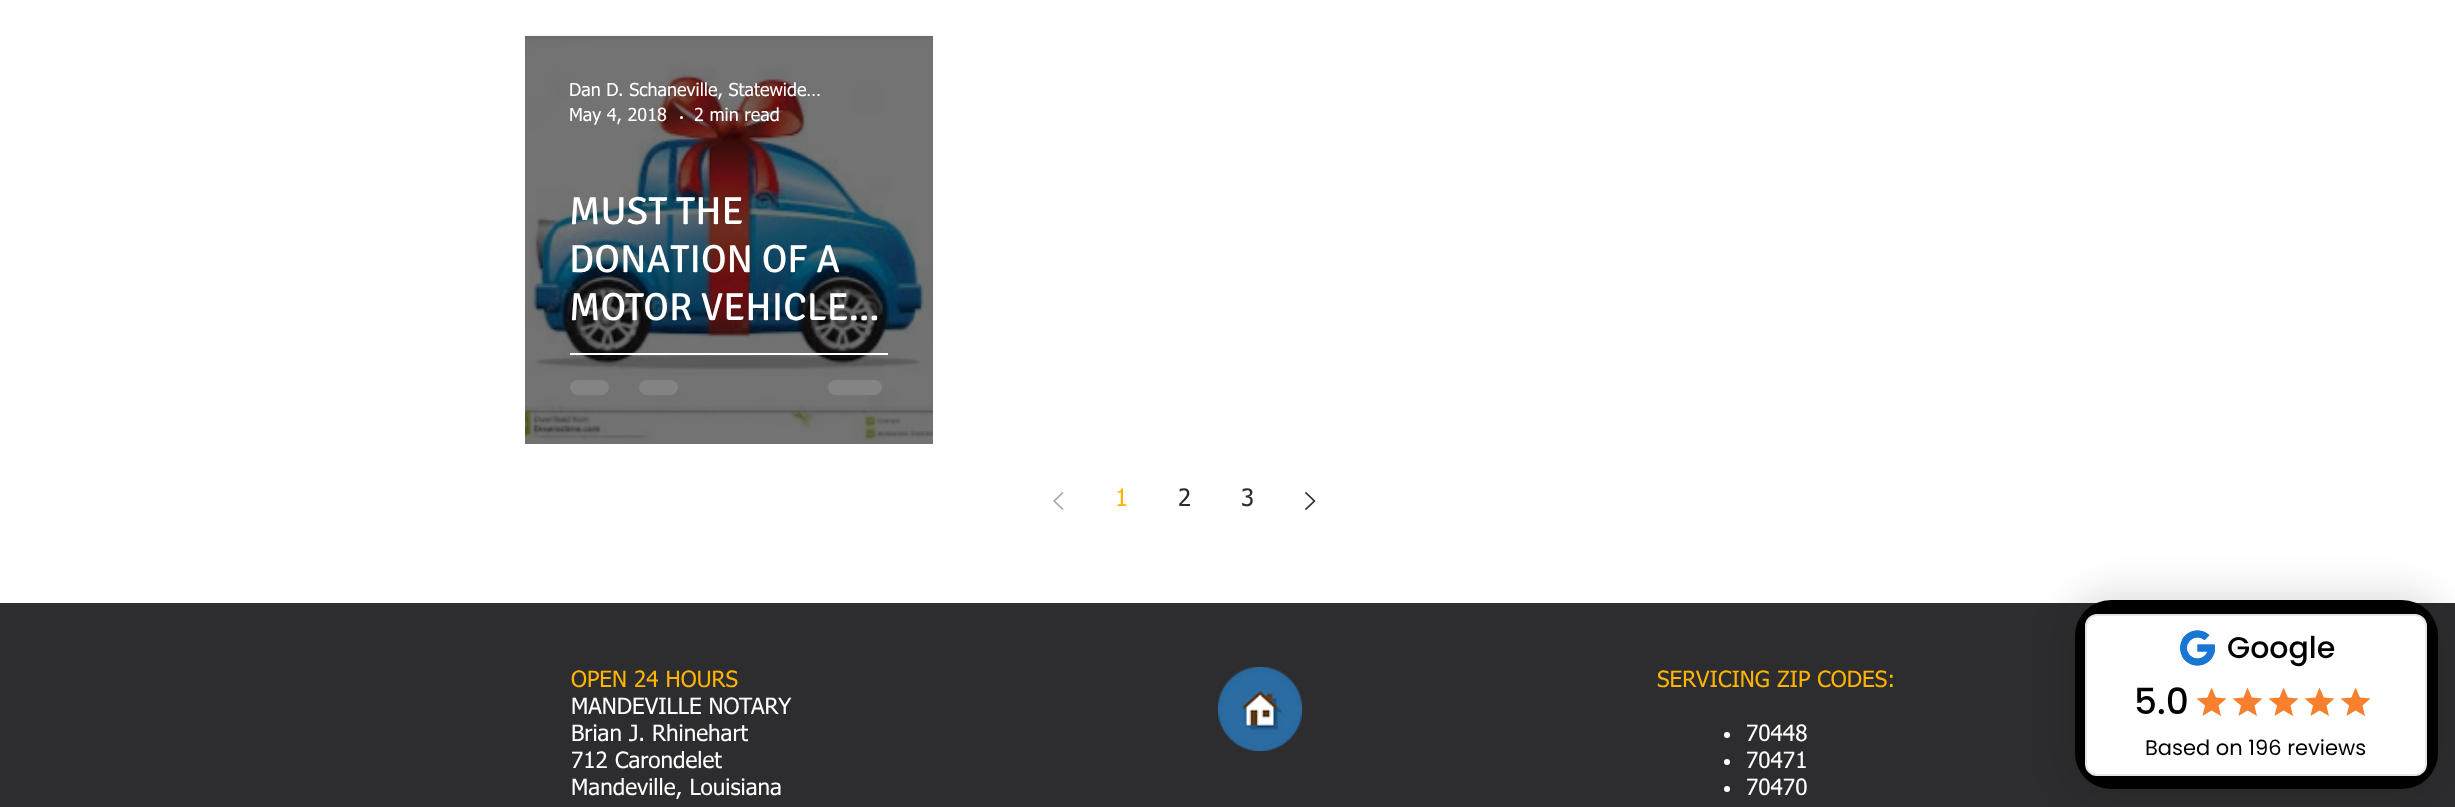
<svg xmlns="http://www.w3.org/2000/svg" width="2455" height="807">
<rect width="100%" height="100%" fill="#fff"/>
<rect x="525" y="36" width="408" height="408" fill="#737373"/>
<image x="525" y="35" width="408" height="409" href="media/1.png"/>
<image x="525" y="35" width="408" height="409" href="media/2.png"/>
<text x="569" y="96" style="font-family:tahoma;font-size:18px;fill:#fff">Dan D. Schaneville, Statewide…</text>
<text x="569" y="121" style="font-family:tahoma;font-size:18px;fill:#fff">May 4, 2018</text>
<circle cx="681.5" cy="117.5" r="1.5" fill="#fff"/>
<text x="694" y="121" style="font-family:tahoma;font-size:18px;fill:#fff">2 min read</text>
<text x="569" y="224" style="font-family:Signika;font-size:39px;fill:#fff">MUST THE</text>
<text x="569" y="272" style="font-family:Signika;font-size:39px;fill:#fff">DONATION OF A</text>
<text x="569" y="320" style="font-family:Signika;font-size:39px;fill:#fff">MOTOR VEHICLE...</text>
<rect x="570" y="353" width="318" height="2" fill="#fff"/>
<rect x="570" y="380" width="39" height="15" rx="7.5" fill="#848484"/>
<rect x="639" y="380" width="39" height="15" rx="7.5" fill="#838383"/>
<rect x="828" y="380" width="54" height="15" rx="7.5" fill="#848484"/>
<image x="1053" y="492" width="11" height="18" href="media/3.png"/>
<text x="1115" y="506" style="font-family:tahoma;font-size:24px;fill:#ffb400">1</text>
<text x="1178" y="506" style="font-family:tahoma;font-size:24px;fill:#2d2d2f">2</text>
<text x="1241" y="506" style="font-family:tahoma;font-size:24px;fill:#2d2d2f">3</text>
<image x="1305" y="492" width="11" height="18" href="media/4.png"/>
<rect y="603" width="2455" height="204" fill="#2d2d2f"/>
<text x="571" y="687" style="font-family:tahoma;font-size:22.5px;fill:#ffb400">OPEN 24 HOURS</text>
<text x="571" y="714" style="font-family:tahoma;font-size:22.5px;fill:#fff">MANDEVILLE NOTARY</text>
<text x="571" y="741" style="font-family:tahoma;font-size:22.5px;fill:#fff">Brian J. Rhinehart</text>
<text x="571" y="768" style="font-family:tahoma;font-size:22.5px;fill:#fff">712 Carondelet</text>
<text x="571" y="795" style="font-family:tahoma;font-size:22.5px;fill:#fff">Mandeville, Louisiana</text>
<image x="1218" y="667" width="84" height="84" href="media/5.png"/>
<text x="1657" y="687" style="font-family:tahoma;font-size:22.5px;fill:#ffb400">SERVICING ZIP CODES:</text>
<circle cx="1727" cy="735" r="3" fill="#fff"/>
<text x="1746" y="741" style="font-family:tahoma;font-size:22.5px;fill:#fff">70448</text>
<circle cx="1727" cy="762" r="3" fill="#fff"/>
<text x="1746" y="768" style="font-family:tahoma;font-size:22.5px;fill:#fff">70471</text>
<circle cx="1727" cy="789" r="3" fill="#fff"/>
<text x="1746" y="795" style="font-family:tahoma;font-size:22.5px;fill:#fff">70470</text>
<rect x="2066" y="591" width="381" height="207" rx="45" fill="#0000001f" filter="blur(18px)"/>
<rect x="2075" y="600" width="363" height="189" rx="36" fill="#000"/>
<rect x="2086" y="615" width="340" height="160" rx="11" fill="#fff" stroke="#e5e5e5" stroke-width="2"/>
<image x="2180" y="630" width="35" height="36" href="media/6.png"/>
<text x="2227" y="658" style="font-family:Poppins;font-size:30px;font-weight:500;fill:#000">Google</text>
<text x="2134" y="714" style="font-family:Poppins;font-size:36px;font-weight:500;fill:#000">5.0</text>
<path d="M2211.5 710.5l9.5 5.5l-2.5-10.5l8-7l-10.5-1l-4.5-10l-4 10l-11 1l8.5 7l-2.5 10.5z" fill="#f7802f"/>
<path d="M2247.5 710.5l9.5 5.5l-2.5-10.5l8-7l-10.5-1l-4.5-10l-4 10l-11 1l8.5 7l-2.5 10.5z" fill="#f7802f"/>
<path d="M2283.5 710.5l9.5 5.5l-2.5-10.5l8-7l-10.5-1l-4.5-10l-4 10l-11 1l8.5 7l-2.5 10.5z" fill="#f7802f"/>
<path d="M2319.5 710.5l9.5 5.5l-2.5-10.5l8-7l-10.5-1l-4.5-10l-4 10l-11 1l8.5 7l-2.5 10.5z" fill="#f7802f"/>
<path d="M2355.5 710.5l9.5 5.5l-2.5-10.5l8-7l-10.5-1l-4.5-10l-4 10l-11 1l8.5 7l-2.5 10.5z" fill="#f7802f"/>
<text x="2145" y="755" style="font-family:Poppins;font-size:21px;fill:#000">Based on 196 reviews</text>
</svg>
